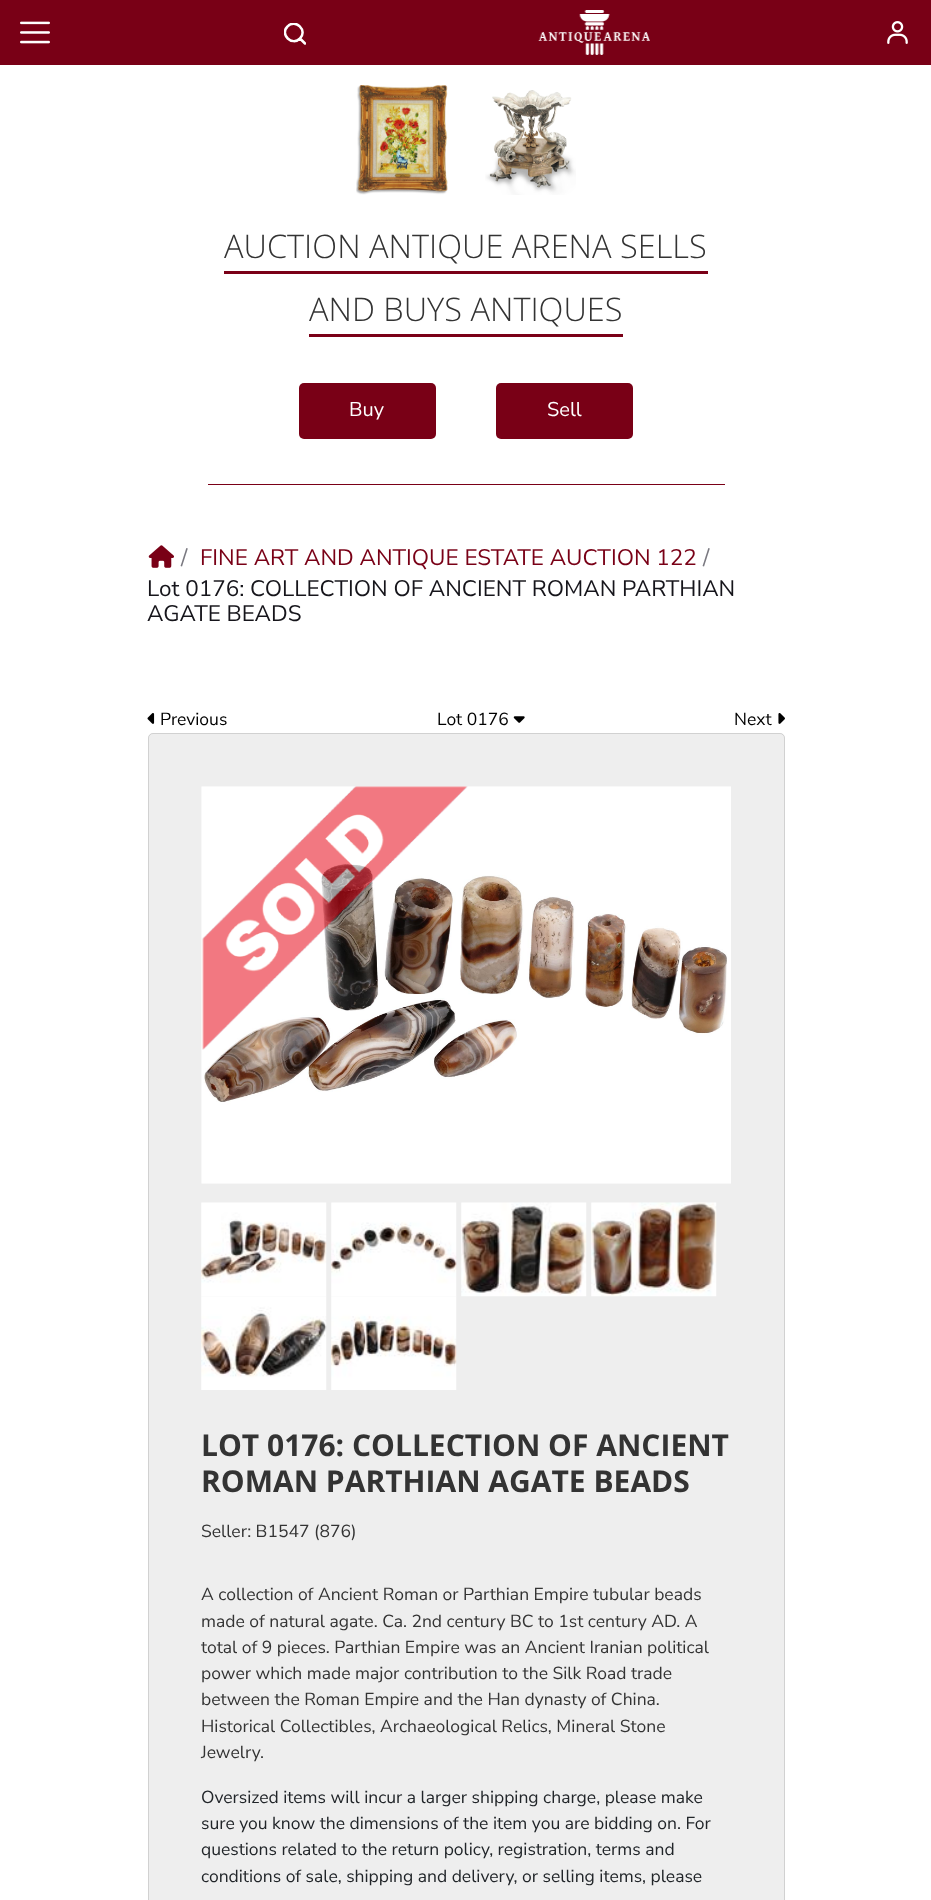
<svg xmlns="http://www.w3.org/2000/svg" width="931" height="1900">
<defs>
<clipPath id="clip1"><rect x="284" y="23" width="22" height="22"/></clipPath>
</defs>
<rect width="100%" height="100%" fill="#fff"/>
<rect width="931" height="65" fill="#790016"/>
<image x="20" y="21" width="30" height="23" href="media/1.png"/>
<g clip-path="url(#clip1)">
<path d="M305 43.5l-5-5m0 0c8-8-4.5-20.5-12.5-12c-8 8 4.5 20 12.5 12z" fill="none" stroke="#fff" stroke-width="2.5" stroke-linecap="round" stroke-linejoin="round"/>
</g>
<image x="538" y="10" width="112" height="45" href="media/2.png"/>
<image x="887" y="21" width="21" height="23" href="media/3.png"/>
<rect x="208" y="484" width="517" height="1" fill="#7a0017"/>
<image x="356" y="85" width="92" height="110" href="media/4.png"/>
<image x="485" y="90" width="91" height="105" href="media/5.png"/>
<text x="224" y="258" style="font-family:Open Sans;font-size:32.5px;font-weight:300;fill:#333">AUCTION ANTIQUE ARENA SELLS</text>
<rect x="224" y="271" width="484" height="3" fill="#7a0017"/>
<text x="309" y="321" style="font-family:Open Sans;font-size:32.5px;font-weight:300;fill:#333">AND BUYS ANTIQUES</text>
<rect x="309" y="334" width="314" height="3" fill="#7a0017"/>
<rect x="299" y="383" width="137" height="56" rx="5" fill="#790016"/>
<text x="349" y="416" style="font-family:Nunito Sans;font-size:20px;font-weight:200;fill:#fff">Buy</text>
<rect x="496" y="383" width="137" height="56" rx="5" fill="#790016"/>
<text x="547" y="416" style="font-family:Nunito Sans;font-size:20px;font-weight:200;fill:#fff">Sell</text>
<image x="148" y="545" width="26" height="23" href="media/6.png"/>
<text x="181" y="565" style="font-family:Nunito Sans;font-size:22.5px;font-weight:200;fill:#7a7981">/</text>
<text x="200" y="565" style="font-family:Nunito Sans;font-size:22.5px;font-weight:200;fill:#790016">FINE ART AND ANTIQUE ESTATE AUCTION 122</text>
<text x="703" y="565" style="font-family:Nunito Sans;font-size:22.5px;font-weight:200;fill:#7a7981">/</text>
<text x="147" y="596" style="font-family:Nunito Sans;font-size:22.5px;font-weight:200;fill:#16151b">Lot 0176: COLLECTION OF ANCIENT ROMAN PARTHIAN</text>
<text x="147" y="621" style="font-family:Nunito Sans;font-size:22.5px;font-weight:200;fill:#16151b">AGATE BEADS</text>
<image x="147" y="713" width="8" height="11" href="media/7.png"/>
<text x="160" y="725" style="font-family:Nunito Sans;font-size:17.5px;font-weight:200;fill:#000">Previous</text>
<text x="437" y="725" style="font-family:Nunito Sans;font-size:17.5px;font-weight:200;fill:#000">Lot 0176</text>
<image x="513" y="716" width="12" height="7" href="media/8.png"/>
<text x="734" y="725" style="font-family:Nunito Sans;font-size:17.5px;font-weight:200;fill:#000">Next</text>
<image x="778" y="713" width="7" height="11" href="media/9.png"/>
<rect x="148" y="733" width="637" height="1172" rx="5" fill="#eee"/>
<rect x="148.5" y="733.5" width="636" height="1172" rx="4.5" fill="none" stroke="#0000001f"/>
<image x="201" y="786" width="530" height="398" href="media/10.png"/>
<image x="202" y="786" width="266" height="264" href="media/11.png"/>
<image x="201" y="1202" width="126" height="95" href="media/12.png"/>
<image x="331" y="1202" width="126" height="95" href="media/13.png"/>
<image x="461" y="1202" width="126" height="95" href="media/14.png"/>
<image x="591" y="1202" width="126" height="95" href="media/15.png"/>
<image x="201" y="1296" width="126" height="94" href="media/16.png"/>
<image x="331" y="1296" width="126" height="94" href="media/17.png"/>
<text x="201" y="1456" style="font-family:Open Sans;font-size:30px;font-weight:bold;fill:#333">LOT 0176: COLLECTION OF ANCIENT</text>
<text x="201" y="1492" style="font-family:Open Sans;font-size:30px;font-weight:bold;fill:#333">ROMAN PARTHIAN AGATE BEADS</text>
<text x="201" y="1537" style="font-family:Nunito Sans;font-size:17.5px;font-weight:200;fill:#333">Seller: B1547 (876)</text>
<text x="201" y="1600" style="font-family:Nunito Sans;font-size:17.5px;font-weight:200;fill:#333">A collection of Ancient Roman or Parthian Empire tubular beads</text>
<text x="201" y="1627" style="font-family:Nunito Sans;font-size:17.5px;font-weight:200;fill:#333">made of natural agate. Ca. 2nd century BC to 1st century AD. A</text>
<text x="201" y="1653" style="font-family:Nunito Sans;font-size:17.5px;font-weight:200;fill:#333">total of 9 pieces. Parthian Empire was an Ancient Iranian political</text>
<text x="201" y="1679" style="font-family:Nunito Sans;font-size:17.5px;font-weight:200;fill:#333">power which made major contribution to the Silk Road trade</text>
<text x="201" y="1705" style="font-family:Nunito Sans;font-size:17.5px;font-weight:200;fill:#333">between the Roman Empire and the Han dynasty of China.</text>
<text x="201" y="1732" style="font-family:Nunito Sans;font-size:17.5px;font-weight:200;fill:#333">Historical Collectibles, Archaeological Relics, Mineral Stone</text>
<text x="201" y="1758" style="font-family:Nunito Sans;font-size:17.5px;font-weight:200;fill:#333">Jewelry.</text>
<text x="201" y="1803" style="font-family:Nunito Sans;font-size:17.5px;font-weight:200;fill:#212529">Oversized items will incur a larger shipping charge, please make</text>
<text x="201" y="1829" style="font-family:Nunito Sans;font-size:17.5px;font-weight:200;fill:#212529">sure you know the dimensions of the item you are bidding on. For</text>
<text x="201" y="1855" style="font-family:Nunito Sans;font-size:17.5px;font-weight:200;fill:#212529">questions related to the return policy, registration, terms and</text>
<text x="201" y="1882" style="font-family:Nunito Sans;font-size:17.5px;font-weight:200;fill:#212529">conditions of sale, shipping and delivery, or selling items, please</text>
</svg>
